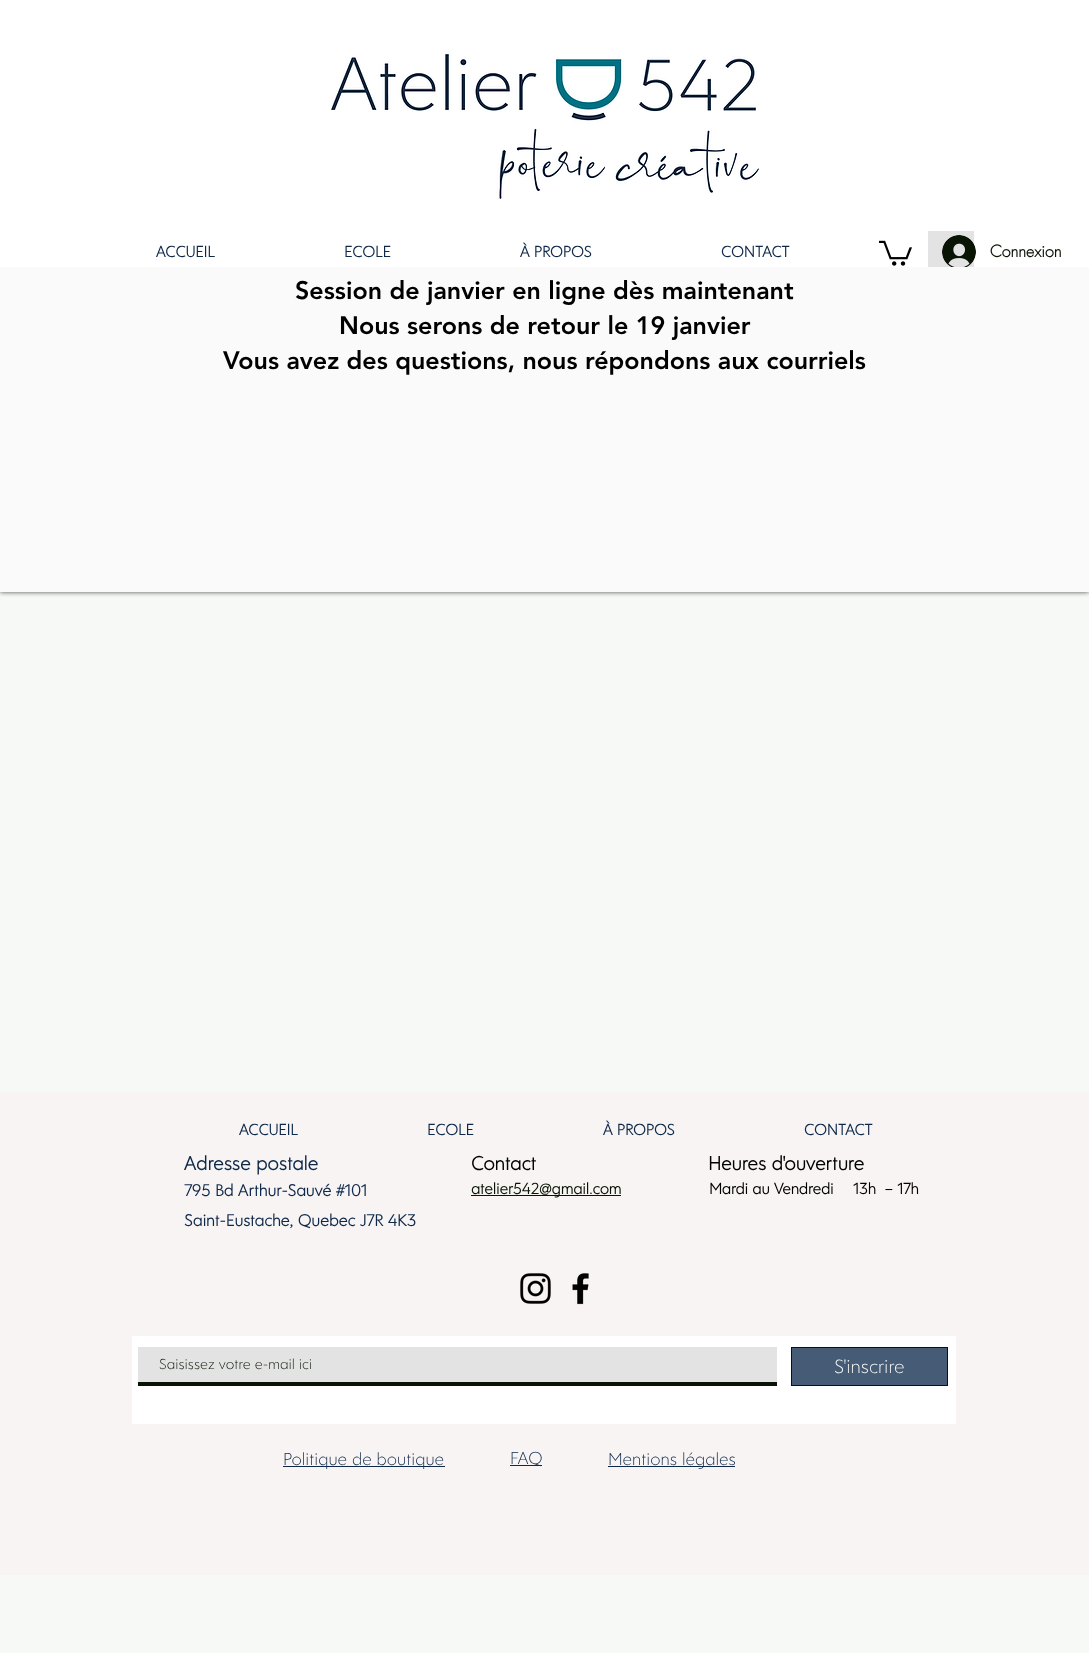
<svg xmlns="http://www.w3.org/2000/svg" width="1089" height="1653">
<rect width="100%" height="100%" fill="#f6f9f5"/>
<rect width="1089" height="592" fill="#000000b3" filter="blur(2.5px)"/>
<rect width="1089" height="267" fill="#fff"/>
<image x="331" y="54" width="428" height="145" href="media/1.png"/>
<text x="156" y="257" style="font-family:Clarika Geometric;font-size:16px;font-weight:bold;fill:#0d2849">ACCUEIL</text>
<text x="344" y="257" style="font-family:Clarika Geometric;font-size:16px;font-weight:bold;fill:#0d2849">ECOLE</text>
<text x="520" y="257" style="font-family:Clarika Geometric;font-size:16px;font-weight:bold;fill:#0d2849">À PROPOS</text>
<text x="721" y="257" style="font-family:Clarika Geometric;font-size:16px;font-weight:bold;fill:#0d2849">CONTACT</text>
<image x="879" y="240" width="33" height="26" href="media/2.png"/>
<rect x="928" y="231" width="46" height="36" fill="#e3e3e3"/>
<image x="942" y="235" width="34" height="32" href="media/3.png"/>
<text x="990" y="257" style="font-family:futura;font-size:16px;font-weight:bold;fill:#091405">Connexion</text>
<rect y="267" width="1089" height="325" fill="#fafafa"/>
<text x="295" y="299" style="font-family:'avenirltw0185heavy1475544';font-size:25px;font-weight:900;fill:#000">Session de janvier en ligne dès maintenant</text>
<text x="339" y="334" style="font-family:'avenirltw0185heavy1475544';font-size:25px;font-weight:900;fill:#000">Nous serons de retour le 19 janvier</text>
<text x="223" y="369" style="font-family:'avenirltw0185heavy1475544';font-size:25px;font-weight:900;fill:#000">Vous avez des questions, nous répondons aux courriels</text>
<rect y="1092" width="1089" height="483" fill="#f7f4f3"/>
<text x="239" y="1135" style="font-family:Clarika Geometric;font-size:16px;font-weight:bold;fill:#0d2849">ACCUEIL</text>
<text x="427" y="1135" style="font-family:Clarika Geometric;font-size:16px;font-weight:bold;fill:#0d2849">ECOLE</text>
<text x="603" y="1135" style="font-family:Clarika Geometric;font-size:16px;font-weight:bold;fill:#0d2849">À PROPOS</text>
<text x="804" y="1135" style="font-family:Clarika Geometric;font-size:16px;font-weight:bold;fill:#0d2849">CONTACT</text>
<text x="184" y="1170" style="font-family:Clarika Geometric;font-size:20px;font-weight:bold;fill:#0d2849">Adresse postale</text>
<text x="471" y="1170" style="font-family:Clarika Geometric;font-size:20px;font-weight:bold;fill:#000">Contact</text>
<text x="708" y="1170" style="font-family:Clarika Geometric;font-size:20px;font-weight:bold;fill:#000">Heures d'ouverture</text>
<text x="184" y="1196" style="font-family:Clarika Geometric;font-size:17px;font-weight:bold;fill:#0d2849">795 Bd Arthur-Sauvé #101</text>
<text x="184" y="1226" style="font-family:Clarika Geometric;font-size:17px;font-weight:bold;fill:#0d2849">Saint-Eustache, Quebec J7R 4K3</text>
<rect x="471" y="1195" width="150" height="1" fill="#091405"/>
<text x="471" y="1194" style="font-family:Clarika Geometric;font-size:16px;font-weight:bold;fill:#091405">atelier542@gmail.com</text>
<text x="709" y="1194" style="font-family:Clarika Geometric;font-size:16px;font-weight:bold;fill:#000">Mardi au Vendredi</text>
<text x="853" y="1194" style="font-family:Clarika Geometric;font-size:16px;font-weight:bold;fill:#000" xml:space="preserve">13h  – 17h</text>
<image x="520" y="1273" width="31" height="31" href="media/4.png"/>
<image x="572" y="1273" width="17" height="32" href="media/5.png"/>
<rect x="132" y="1336" width="824" height="88" fill="#fff"/>
<rect x="138" y="1347" width="639" height="35" fill="#e3e3e3"/>
<rect x="138" y="1382" width="639" height="4" fill="#091405"/>
<text x="159" y="1369" style="font-family:Clarika Geometric;font-size:15px;font-weight:200;fill:#091405">Saisissez votre e-mail ici</text>
<rect x="791.5" y="1347.5" width="156" height="38" fill="#465c76" stroke="#091405"/>
<text x="834" y="1373" style="font-family:Clarika Geometric;font-size:20px;font-weight:200;fill:#f6f9f5">S'inscrire</text>
<rect x="283" y="1466" width="162" height="1" fill="#0d2849"/>
<text x="283" y="1465" style="font-family:Clarika Geometric;font-size:18px;font-weight:200;fill:#0d2849">Politique de boutique</text>
<rect x="510" y="1465" width="32" height="1" fill="#0d2849"/>
<text x="510" y="1464" style="font-family:Clarika Geometric;font-size:18px;font-weight:200;fill:#0d2849">FAQ</text>
<rect x="608" y="1466" width="127" height="1" fill="#0d2849"/>
<text x="608" y="1465" style="font-family:Clarika Geometric;font-size:18px;font-weight:200;fill:#0d2849">Mentions légales</text>
</svg>
